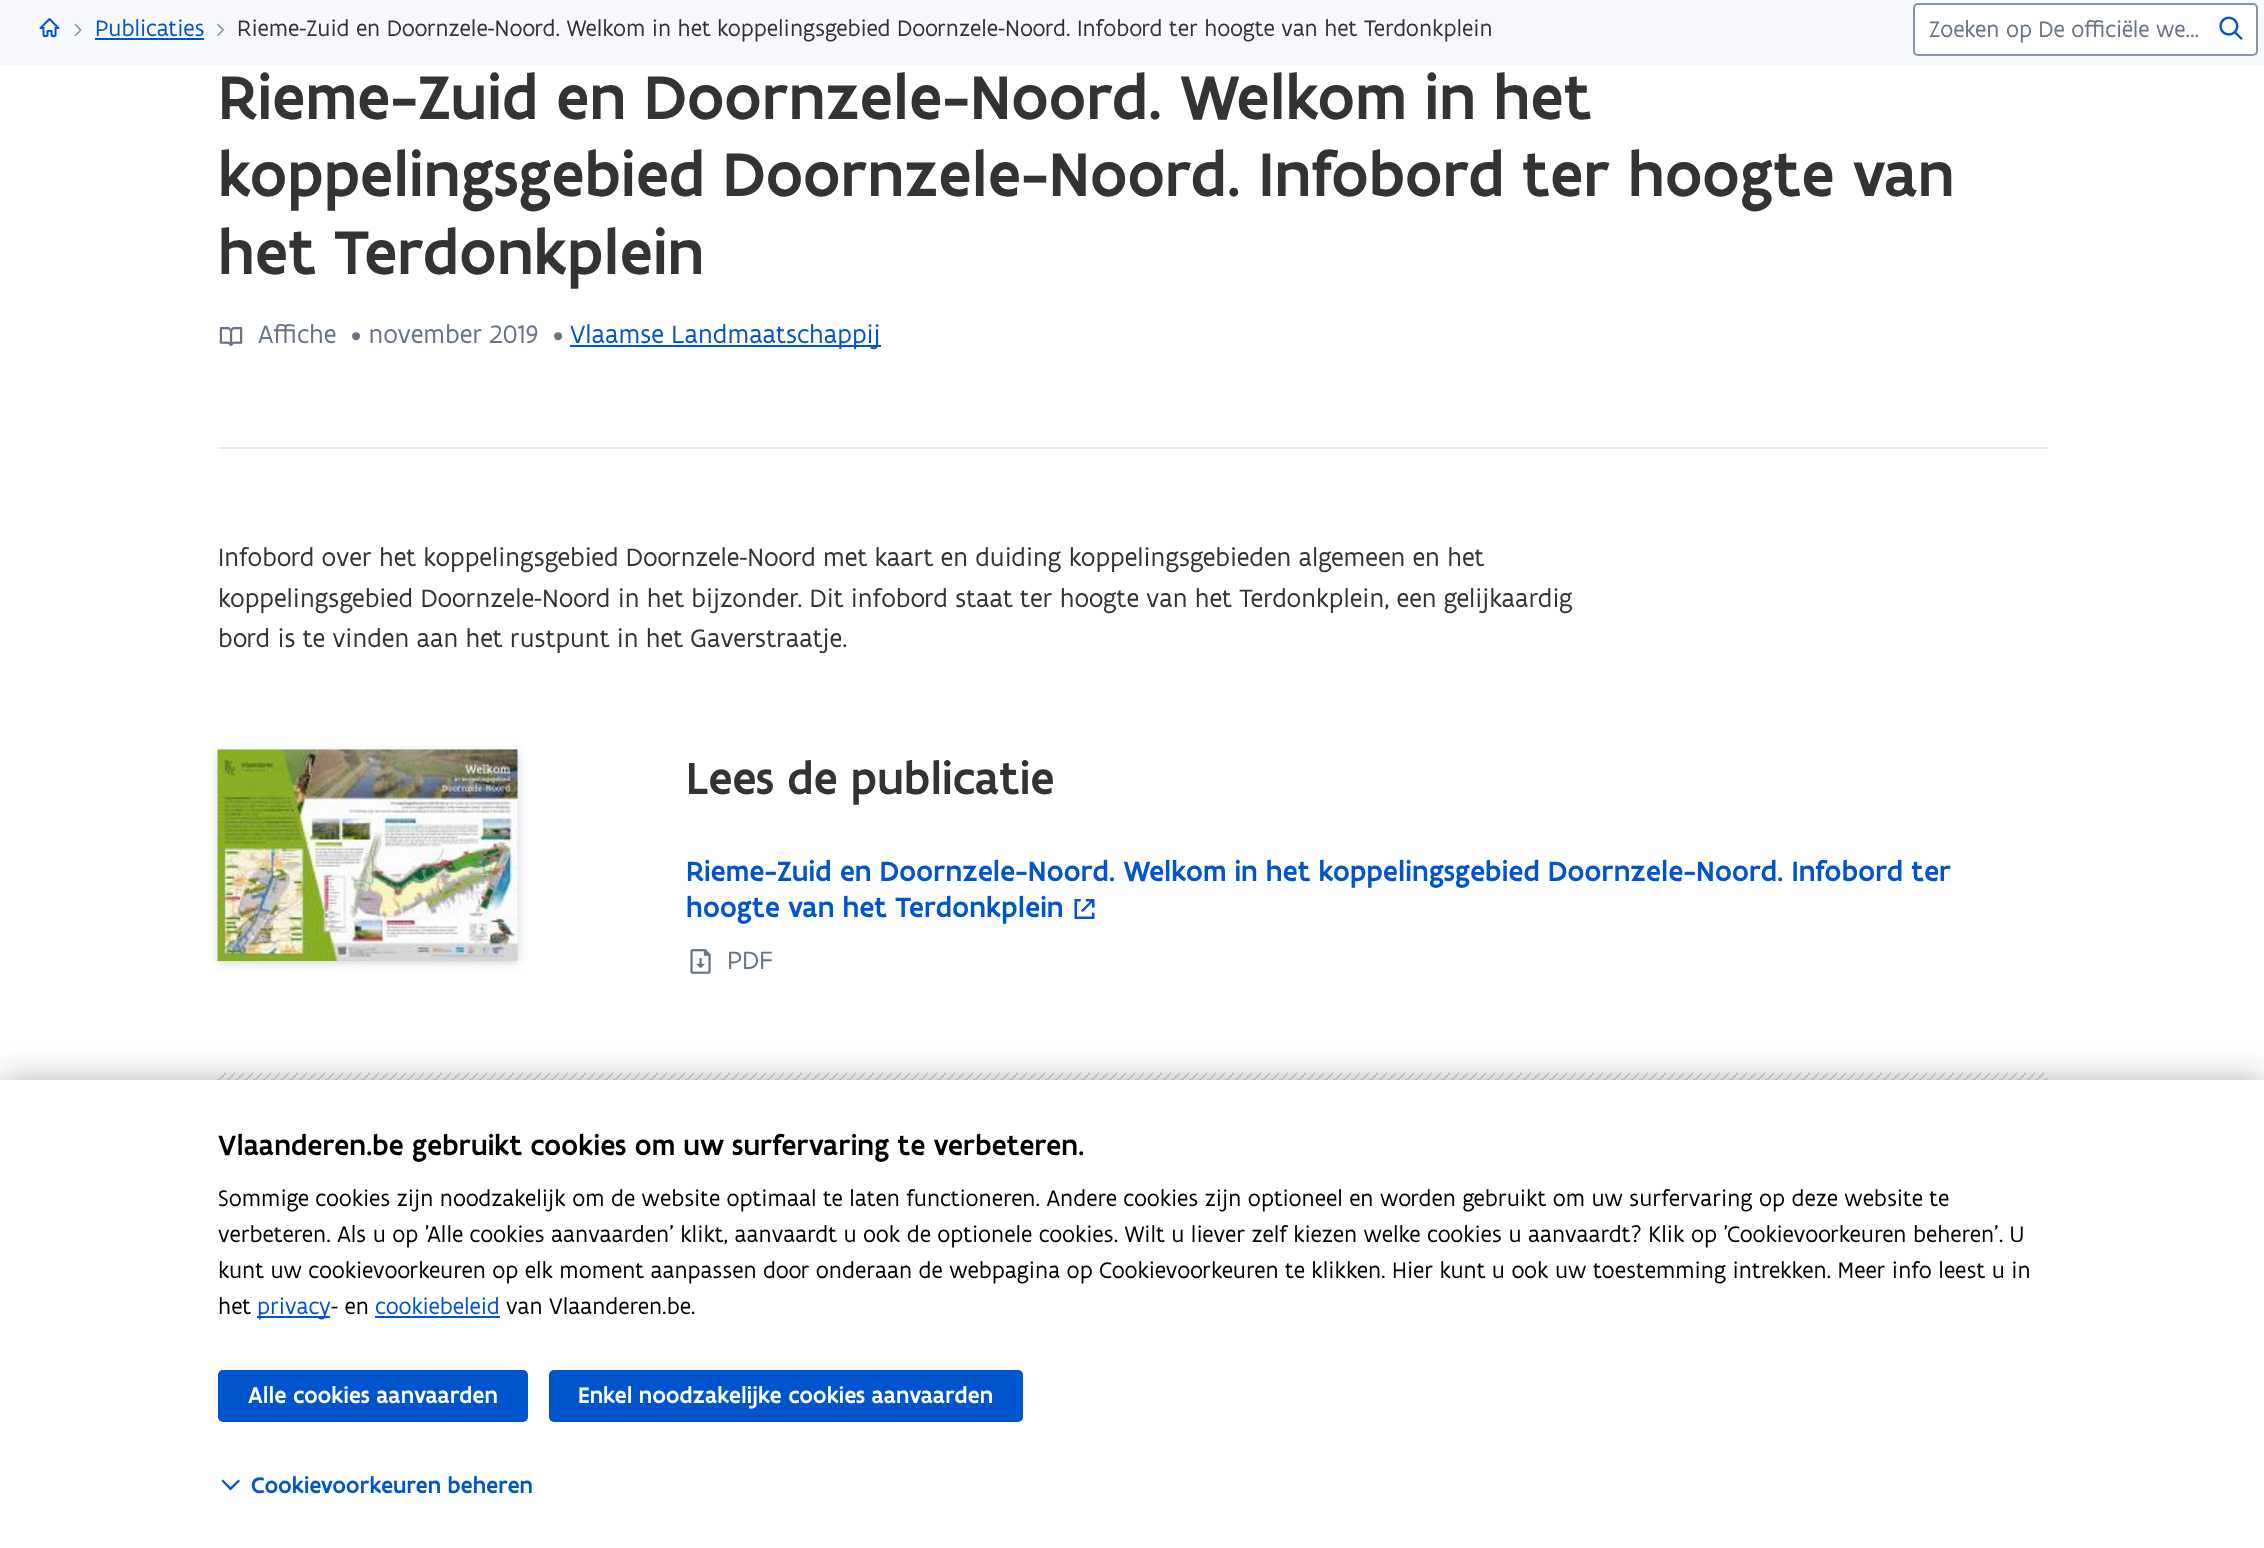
<svg xmlns="http://www.w3.org/2000/svg" width="2264" height="1548">
<rect width="100%" height="100%" fill="#fff"/>
<rect width="2264" height="65" fill="#f7f9fc"/>
<image x="39" y="18" width="21" height="19" href="media/1.png"/>
<image x="74" y="23" width="8" height="14" href="media/2.png"/>
<text x="95" y="36" style="font-family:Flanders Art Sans;font-size:24px;fill:#05c">Publicaties</text>
<rect x="95" y="38" width="109" height="2" fill="#05c"/>
<image x="217" y="23" width="8" height="14" href="media/3.png"/>
<text x="237" y="36" style="font-family:Flanders Art Sans;font-size:24px;fill:#333332">Rieme-Zuid en Doornzele-Noord. Welkom in het koppelingsgebied Doornzele-Noord. Infobord ter hoogte van het Terdonkplein</text>
<rect x="1914" y="4" width="343" height="51" rx="4" fill="#fff" stroke="#8695a8" stroke-width="2"/>
<text x="1929" y="37" style="font-family:Flanders Art Sans;font-size:24px;fill:#687483">Zoeken op De officiële we…</text>
<image x="2219" y="16" width="24" height="24" href="media/4.png"/>
<rect x="218" y="447" width="1830" height="2" fill="#e8ebee"/>
<text x="218" y="119" style="font-family:Flanders Art Sans;font-size:66px;font-weight:500;fill:#333332">Rieme-Zuid en Doornzele-Noord. Welkom in het</text>
<text x="218" y="196" style="font-family:Flanders Art Sans;font-size:66px;font-weight:500;fill:#333332">koppelingsgebied Doornzele-Noord. Infobord ter hoogte van</text>
<text x="218" y="274" style="font-family:Flanders Art Sans;font-size:66px;font-weight:500;fill:#333332">het Terdonkplein</text>
<image x="219" y="327" width="24" height="20" href="media/5.png"/>
<text x="258" y="343" style="font-family:Flanders Art Sans;font-size:27px;fill:#687483">Affiche</text>
<text x="351" y="343" style="font-family:Flanders Art Sans;font-size:27px;fill:#687483">• november 2019</text>
<text x="553" y="343" style="font-family:Flanders Art Sans;font-size:27px;fill:#687483">•</text>
<rect x="570" y="345" width="311" height="2" fill="#05c"/>
<text x="570" y="343" style="font-family:Flanders Art Sans;font-size:27px;fill:#05c">Vlaamse Landmaatschappij</text>
<text x="218" y="566" style="font-family:Flanders Art Sans;font-size:27px;fill:#333332">Infobord over het koppelingsgebied Doornzele-Noord met kaart en duiding koppelingsgebieden algemeen en het</text>
<text x="218" y="607" style="font-family:Flanders Art Sans;font-size:27px;fill:#333332">koppelingsgebied Doornzele-Noord in het bijzonder. Dit infobord staat ter hoogte van het Terdonkplein, een gelijkaardig</text>
<text x="218" y="647" style="font-family:Flanders Art Sans;font-size:27px;fill:#333332">bord is te vinden aan het rustpunt in het Gaverstraatje.</text>
<rect x="218" y="752" width="300" height="211" fill="#cfd5dd" filter="blur(4.5px)"/>
<image x="217" y="749" width="301" height="212" href="media/6.png"/>
<text x="686" y="794" style="font-family:Flanders Art Sans;font-size:48px;font-weight:500;fill:#333332">Lees de publicatie</text>
<text x="686" y="881" style="font-family:Flanders Art Sans;font-size:30px;font-weight:500;fill:#05c">Rieme-Zuid en Doornzele-Noord. Welkom in het koppelingsgebied Doornzele-Noord. Infobord ter</text>
<text x="686" y="917" style="font-family:Flanders Art Sans;font-size:30px;font-weight:500;fill:#05c">hoogte van het Terdonkplein</text>
<image x="1074" y="899" width="21" height="20" href="media/7.png"/>
<image x="690" y="949" width="21" height="25" href="media/8.png"/>
<text x="727" y="969" style="font-family:Flanders Art Sans;font-size:27px;fill:#687483">PDF</text>
<image x="217" y="1072" width="1831" height="8" href="media/9.png"/>
<rect y="1080" width="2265" height="468" fill="#0000004d" filter="blur(16px)"/>
<rect y="1080" width="2264" height="468" fill="#fff"/>
<text x="218" y="1155" style="font-family:Flanders Art Sans;font-size:30px;font-weight:500;fill:#000">Vlaanderen.be gebruikt cookies om uw surfervaring te verbeteren.</text>
<text x="218" y="1206" style="font-family:Flanders Art Sans;font-size:24px;fill:#000">Sommige cookies zijn noodzakelijk om de website optimaal te laten functioneren. Andere cookies zijn optioneel en worden gebruikt om uw surfervaring op deze website te</text>
<text x="218" y="1242" style="font-family:Flanders Art Sans;font-size:24px;fill:#000">verbeteren. Als u op 'Alle cookies aanvaarden' klikt, aanvaardt u ook de optionele cookies. Wilt u liever zelf kiezen welke cookies u aanvaardt? Klik op 'Cookievoorkeuren beheren'. U</text>
<text x="218" y="1278" style="font-family:Flanders Art Sans;font-size:24px;fill:#000">kunt uw cookievoorkeuren op elk moment aanpassen door onderaan de webpagina op Cookievoorkeuren te klikken. Hier kunt u ook uw toestemming intrekken. Meer info leest u in</text>
<text x="218" y="1314" style="font-family:Flanders Art Sans;font-size:24px;fill:#000">het</text>
<rect x="257" y="1316" width="73" height="2" fill="#05c"/>
<text x="257" y="1314" style="font-family:Flanders Art Sans;font-size:24px;fill:#05c">privacy</text>
<text x="331" y="1314" style="font-family:Flanders Art Sans;font-size:24px;fill:#000">- en</text>
<text x="375" y="1314" style="font-family:Flanders Art Sans;font-size:24px;fill:#05c">cookiebeleid</text>
<rect x="375" y="1316" width="125" height="2" fill="#05c"/>
<text x="506" y="1314" style="font-family:Flanders Art Sans;font-size:24px;fill:#000">van Vlaanderen.be.</text>
<rect x="218" y="1370" width="310" height="52" rx="5" fill="#05c"/>
<text x="248" y="1403" style="font-family:Flanders Art Sans;font-size:24px;font-weight:500;fill:#fff">Alle cookies aanvaarden</text>
<rect x="549" y="1370" width="474" height="52" rx="5" fill="#05c"/>
<text x="578" y="1403" style="font-family:Flanders Art Sans;font-size:24px;font-weight:500;fill:#fff">Enkel noodzakelijke cookies aanvaarden</text>
<path d="M221.5 1481l1.5-1.5l7.5 7.5l8-7.5l1.5 1.5l-9.5 9.5z" fill="#05c"/>
<text x="251" y="1493" style="font-family:Flanders Art Sans;font-size:24px;font-weight:500;fill:#05c">Cookievoorkeuren beheren</text>
</svg>
